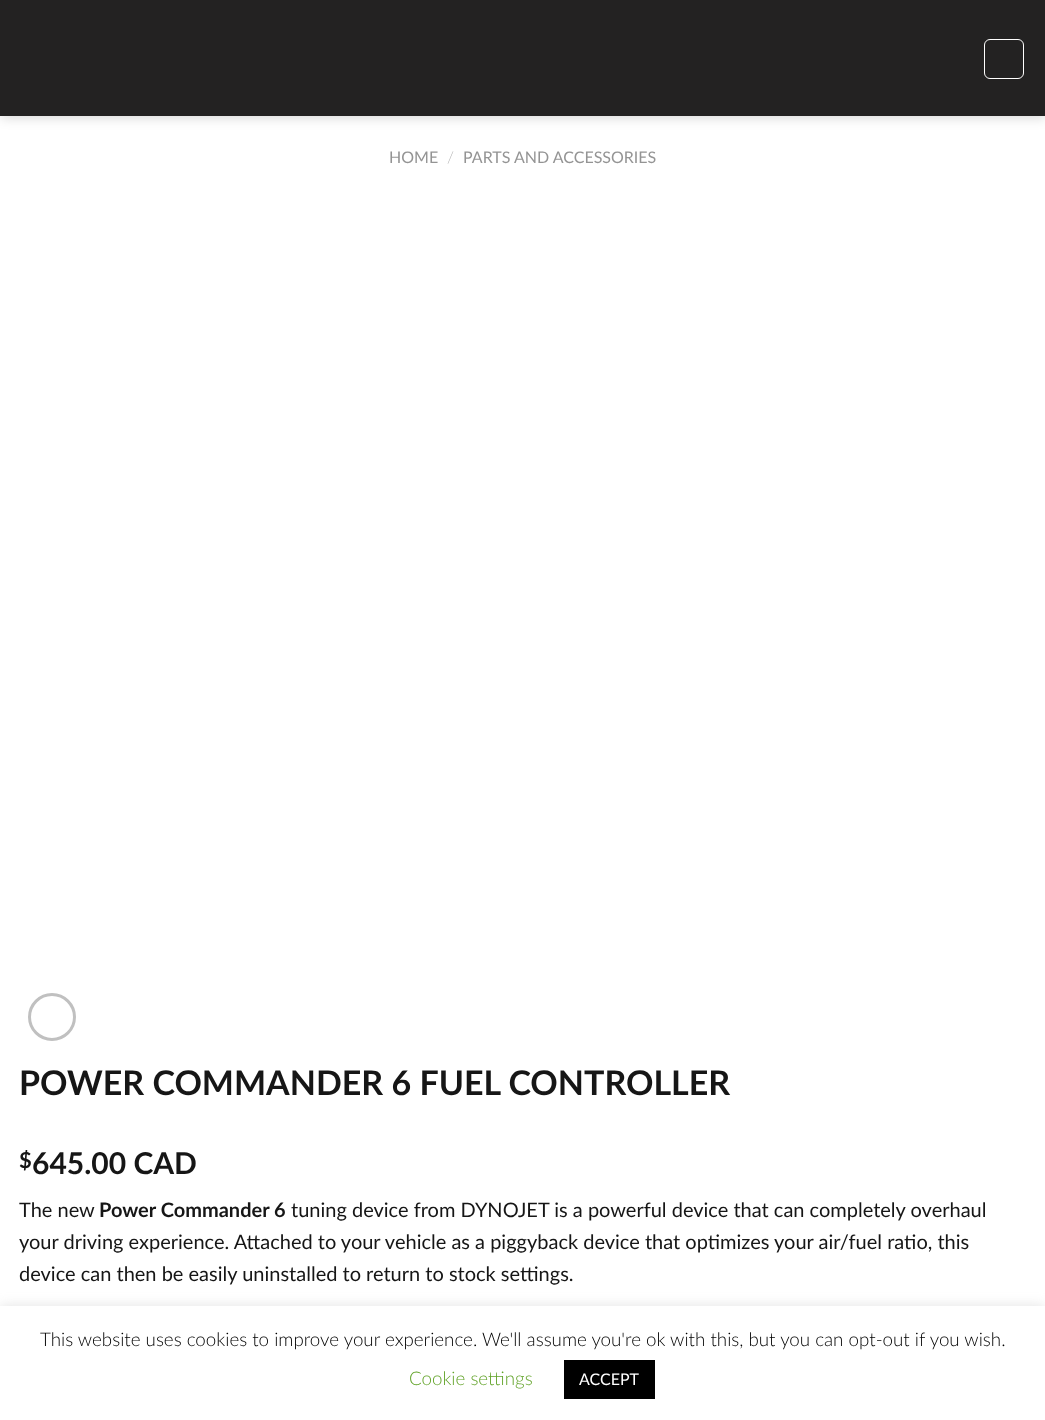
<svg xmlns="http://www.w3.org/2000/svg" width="1045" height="1420">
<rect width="100%" height="100%" fill="#fff"/>
<rect x="1" y="1" width="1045" height="117" fill="#00000026" filter="blur(6px)"/>
<rect width="1045" height="116" fill="#232222"/>
<rect x="984.5" y="39.5" width="39" height="39" rx="5.5" fill="none" stroke="#fff"/>
<text x="389" y="163" style="font-family:Lato;font-size:16px;fill:#949494">HOME</text>
<text x="447" y="163" style="font-family:Lato;font-size:16px;font-weight:300;fill:#b2b2b2">/</text>
<text x="463" y="163" style="font-family:Lato;font-size:16px;fill:#949494">PARTS AND ACCESSORIES</text>
<circle cx="52" cy="1017" r="22.5" fill="none" stroke="#c0c0c0" stroke-width="3"/>
<text x="19" y="1095" style="font-family:Lato;font-size:34px;font-weight:bold;fill:#161616">POWER COMMANDER 6 FUEL CONTROLLER</text>
<text x="19" y="1168" style="font-family:Lato;font-size:22px;font-weight:bold;fill:#161616">$</text>
<text x="32" y="1174" style="font-family:Lato;font-size:30px;font-weight:bold;fill:#161616">645.00 CAD</text>
<text x="19" y="1217" style="font-family:Lato;font-size:20px;fill:#161616">The new</text>
<text x="99" y="1217" style="font-family:Lato;font-size:20px;font-weight:bold;fill:#161616">Power Commander 6</text>
<text x="291" y="1217" style="font-family:Lato;font-size:20px;fill:#161616">tuning device from DYNOJET is a powerful device that can completely overhaul</text>
<text x="19" y="1249" style="font-family:Lato;font-size:20px;fill:#161616">your driving experience. Attached to your vehicle as a piggyback device that optimizes your air/fuel ratio, this</text>
<text x="19" y="1281" style="font-family:Lato;font-size:20px;fill:#161616">device can then be easily uninstalled to return to stock settings.</text>
<rect y="1305" width="1045" height="114" fill="#acabab4d" filter="blur(6px)"/>
<rect y="1306" width="1045" height="114" fill="#fff"/>
<text x="40" y="1346" style="font-family:Lato;font-size:18.75px;font-weight:300;fill:#000">This website uses cookies to improve your experience. We'll assume you're ok with this, but you can opt-out if you wish.</text>
<text x="409" y="1385" style="font-family:Lato;font-size:18.75px;font-weight:300;fill:#62a329">Cookie settings</text>
<rect x="564" y="1360" width="91" height="39" fill="#000"/>
<text x="579" y="1385" style="font-family:Lato;font-size:16px;fill:#fff">ACCEPT</text>
</svg>
